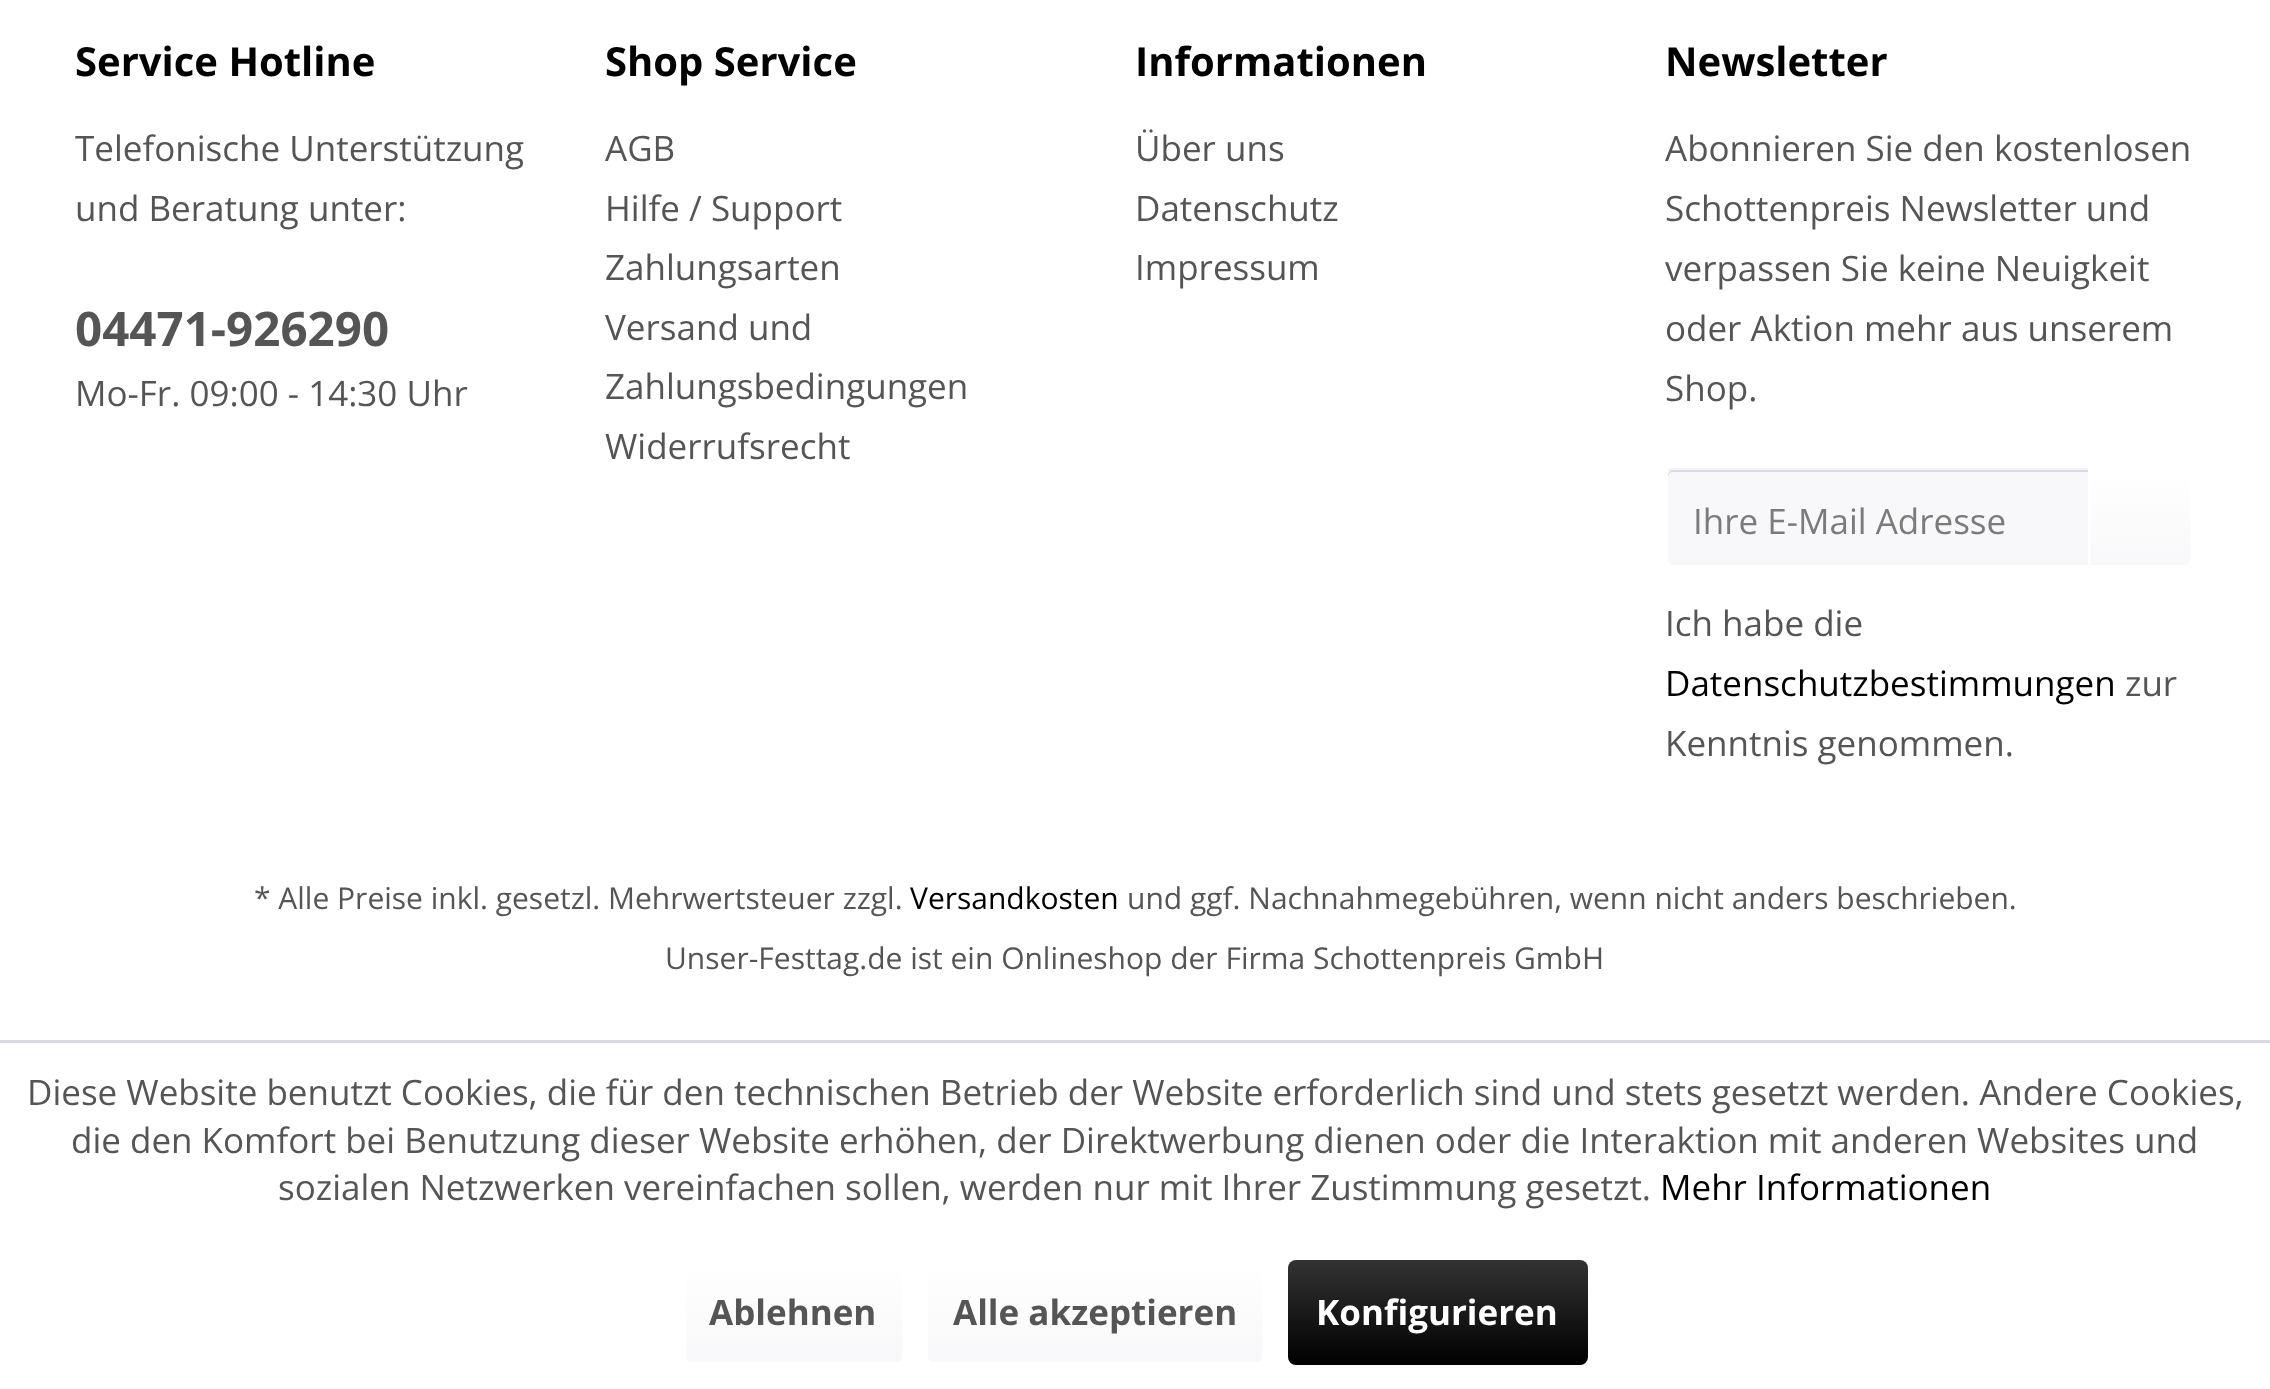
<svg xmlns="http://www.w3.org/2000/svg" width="2270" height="1389">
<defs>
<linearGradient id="g1" gradientUnits="userSpaceOnUse" x1="2140" y1="470" x2="2140" y2="565"><stop offset="0" stop-color="#fff"/><stop offset="1" stop-color="#f8f8fa"/></linearGradient>
<linearGradient id="g2" gradientUnits="userSpaceOnUse" x1="794" y1="1263" x2="794" y2="1363"><stop offset="0" stop-color="#fff"/><stop offset="1" stop-color="#f8f8fa"/></linearGradient>
<linearGradient id="g3" gradientUnits="userSpaceOnUse" x1="1095" y1="1263" x2="1095" y2="1363"><stop offset="0" stop-color="#fff"/><stop offset="1" stop-color="#f8f8fa"/></linearGradient>
<linearGradient id="g4" gradientUnits="userSpaceOnUse" x1="1438" y1="1260" x2="1438" y2="1365"><stop offset="0" stop-color="#333"/><stop offset="1" stop-color="#000"/></linearGradient>
</defs>
<rect width="100%" height="100%" fill="#fff"/>
<text x="75" y="76" style="font-family:Open Sans;font-size:40px;font-weight:bold;fill:#000">Service Hotline</text>
<text x="75" y="161" style="font-family:Open Sans;font-size:35px;fill:#555">Telefonische Unterstützung</text>
<text x="75" y="221" style="font-family:Open Sans;font-size:35px;fill:#555">und Beratung unter:</text>
<text x="75" y="346" style="font-family:Open Sans;font-size:47.5px;font-weight:bold;fill:#555">04471-926290</text>
<text x="75" y="406" style="font-family:Open Sans;font-size:35px;fill:#555">Mo-Fr. 09:00 - 14:30 Uhr</text>
<text x="605" y="76" style="font-family:Open Sans;font-size:40px;font-weight:bold;fill:#000">Shop Service</text>
<text x="605" y="161" style="font-family:Open Sans;font-size:35px;fill:#555">AGB</text>
<text x="605" y="221" style="font-family:Open Sans;font-size:35px;fill:#555">Hilfe / Support</text>
<text x="605" y="280" style="font-family:Open Sans;font-size:35px;fill:#555">Zahlungsarten</text>
<text x="605" y="340" style="font-family:Open Sans;font-size:35px;fill:#555">Versand und</text>
<text x="605" y="399" style="font-family:Open Sans;font-size:35px;fill:#555">Zahlungsbedingungen</text>
<text x="605" y="459" style="font-family:Open Sans;font-size:35px;fill:#555">Widerrufsrecht</text>
<text x="1135" y="76" style="font-family:Open Sans;font-size:40px;font-weight:bold;fill:#000">Informationen</text>
<text x="1135" y="161" style="font-family:Open Sans;font-size:35px;fill:#555">Über uns</text>
<text x="1135" y="221" style="font-family:Open Sans;font-size:35px;fill:#555">Datenschutz</text>
<text x="1135" y="280" style="font-family:Open Sans;font-size:35px;fill:#555">Impressum</text>
<text x="1665" y="76" style="font-family:Open Sans;font-size:40px;font-weight:bold;fill:#000">Newsletter</text>
<text x="1665" y="161" style="font-family:Open Sans;font-size:35px;fill:#555">Abonnieren Sie den kostenlosen</text>
<text x="1665" y="221" style="font-family:Open Sans;font-size:35px;fill:#555">Schottenpreis Newsletter und</text>
<text x="1665" y="281" style="font-family:Open Sans;font-size:35px;fill:#555">verpassen Sie keine Neuigkeit</text>
<text x="1665" y="341" style="font-family:Open Sans;font-size:35px;fill:#555">oder Aktion mehr aus unserem</text>
<text x="1665" y="401" style="font-family:Open Sans;font-size:35px;fill:#555">Shop.</text>
<path d="M1673 470h415v95h-415c-3 0-5-2-5-5v-85c0-3 2-5 5-5z" fill="#f8f8fa"/>
<path d="M1672 472h416v-2h-415c-3 0-5 2-5 5v3c0-3 2-6 4-6z" fill="#dadae5"/>
<path d="M1672 468c-2 0-4 1-5 2l2 2c1-1 2-2 3-2h416l2-2z" fill="#f2f2f2"/>
<path d="M1665 475v85c0 2 1 4 2 6l2-3l-1-2v-72c0 0-2-14 1-17l-2-2c-1 1-2 3-2 5z" fill="#fff"/>
<text x="1693" y="534" style="font-family:Open Sans;font-size:35px;fill:#7b7b7b">Ihre E-Mail Adresse</text>
<path d="M2090 470h95c3 0 5 2 5 5v85c0 3-2 5-5 5h-95z" fill="url(#g1)"/>
<path d="M2089.5 469.5h95.5c3.5 0 6.5 3 6.5 6.5v84c0 3.5-3 6.5-6.5 6.5h-95.5z" fill="none" stroke="#fff" stroke-width="3"/>
<text x="1665" y="636" style="font-family:Open Sans;font-size:35px;fill:#555">Ich habe die</text>
<text x="1665" y="696" style="font-family:Open Sans;font-size:35px;fill:#000">Datenschutzbestimmungen</text>
<text x="2125" y="696" style="font-family:Open Sans;font-size:35px;fill:#555">zur</text>
<text x="1665" y="756" style="font-family:Open Sans;font-size:35px;fill:#555">Kenntnis genommen.</text>
<text x="254" y="909" style="font-family:Open Sans;font-size:30px;fill:#555">* Alle Preise inkl. gesetzl. Mehrwertsteuer zzgl.</text>
<text x="910" y="909" style="font-family:Open Sans;font-size:30px;fill:#000">Versandkosten</text>
<text x="1127" y="909" style="font-family:Open Sans;font-size:30px;fill:#555">und ggf. Nachnahmegebühren, wenn nicht anders beschrieben.</text>
<text x="665" y="969" style="font-family:Open Sans;font-size:30px;fill:#555">Unser-Festtag.de ist ein Onlineshop der Firma Schottenpreis GmbH</text>
<rect y="1040" width="2270" height="3" fill="#dadae5"/>
<text x="27" y="1105" style="font-family:Open Sans;font-size:35px;fill:#555">Diese Website benutzt Cookies, die für den technischen Betrieb der Website erforderlich sind und stets gesetzt werden. Andere Cookies,</text>
<text x="71" y="1153" style="font-family:Open Sans;font-size:35px;fill:#555">die den Komfort bei Benutzung dieser Website erhöhen, der Direktwerbung dienen oder die Interaktion mit anderen Websites und</text>
<text x="278" y="1200" style="font-family:Open Sans;font-size:35px;fill:#555">sozialen Netzwerken vereinfachen sollen, werden nur mit Ihrer Zustimmung gesetzt.</text>
<text x="1660" y="1200" style="font-family:Open Sans;font-size:35px;fill:#000">Mehr Informationen</text>
<rect x="685" y="1263" width="218" height="100" rx="5" fill="url(#g2)"/>
<rect x="684.5" y="1261.5" width="219" height="102" rx="6.5" fill="none" stroke="#fff" stroke-width="3"/>
<text x="709" y="1325" style="font-family:Open Sans;font-size:35px;font-weight:bold;fill:#555">Ablehnen</text>
<rect x="928" y="1263" width="335" height="100" rx="5" fill="url(#g3)"/>
<rect x="926.5" y="1261.5" width="337" height="102" rx="6.5" fill="none" stroke="#fff" stroke-width="3"/>
<text x="953" y="1325" style="font-family:Open Sans;font-size:35px;font-weight:bold;fill:#555">Alle akzeptieren</text>
<rect x="1288" y="1260" width="300" height="105" rx="8" fill="url(#g4)"/>
<text x="1316" y="1325" style="font-family:Open Sans;font-size:35px;font-weight:bold;fill:#fff">Konfigurieren</text>
</svg>
